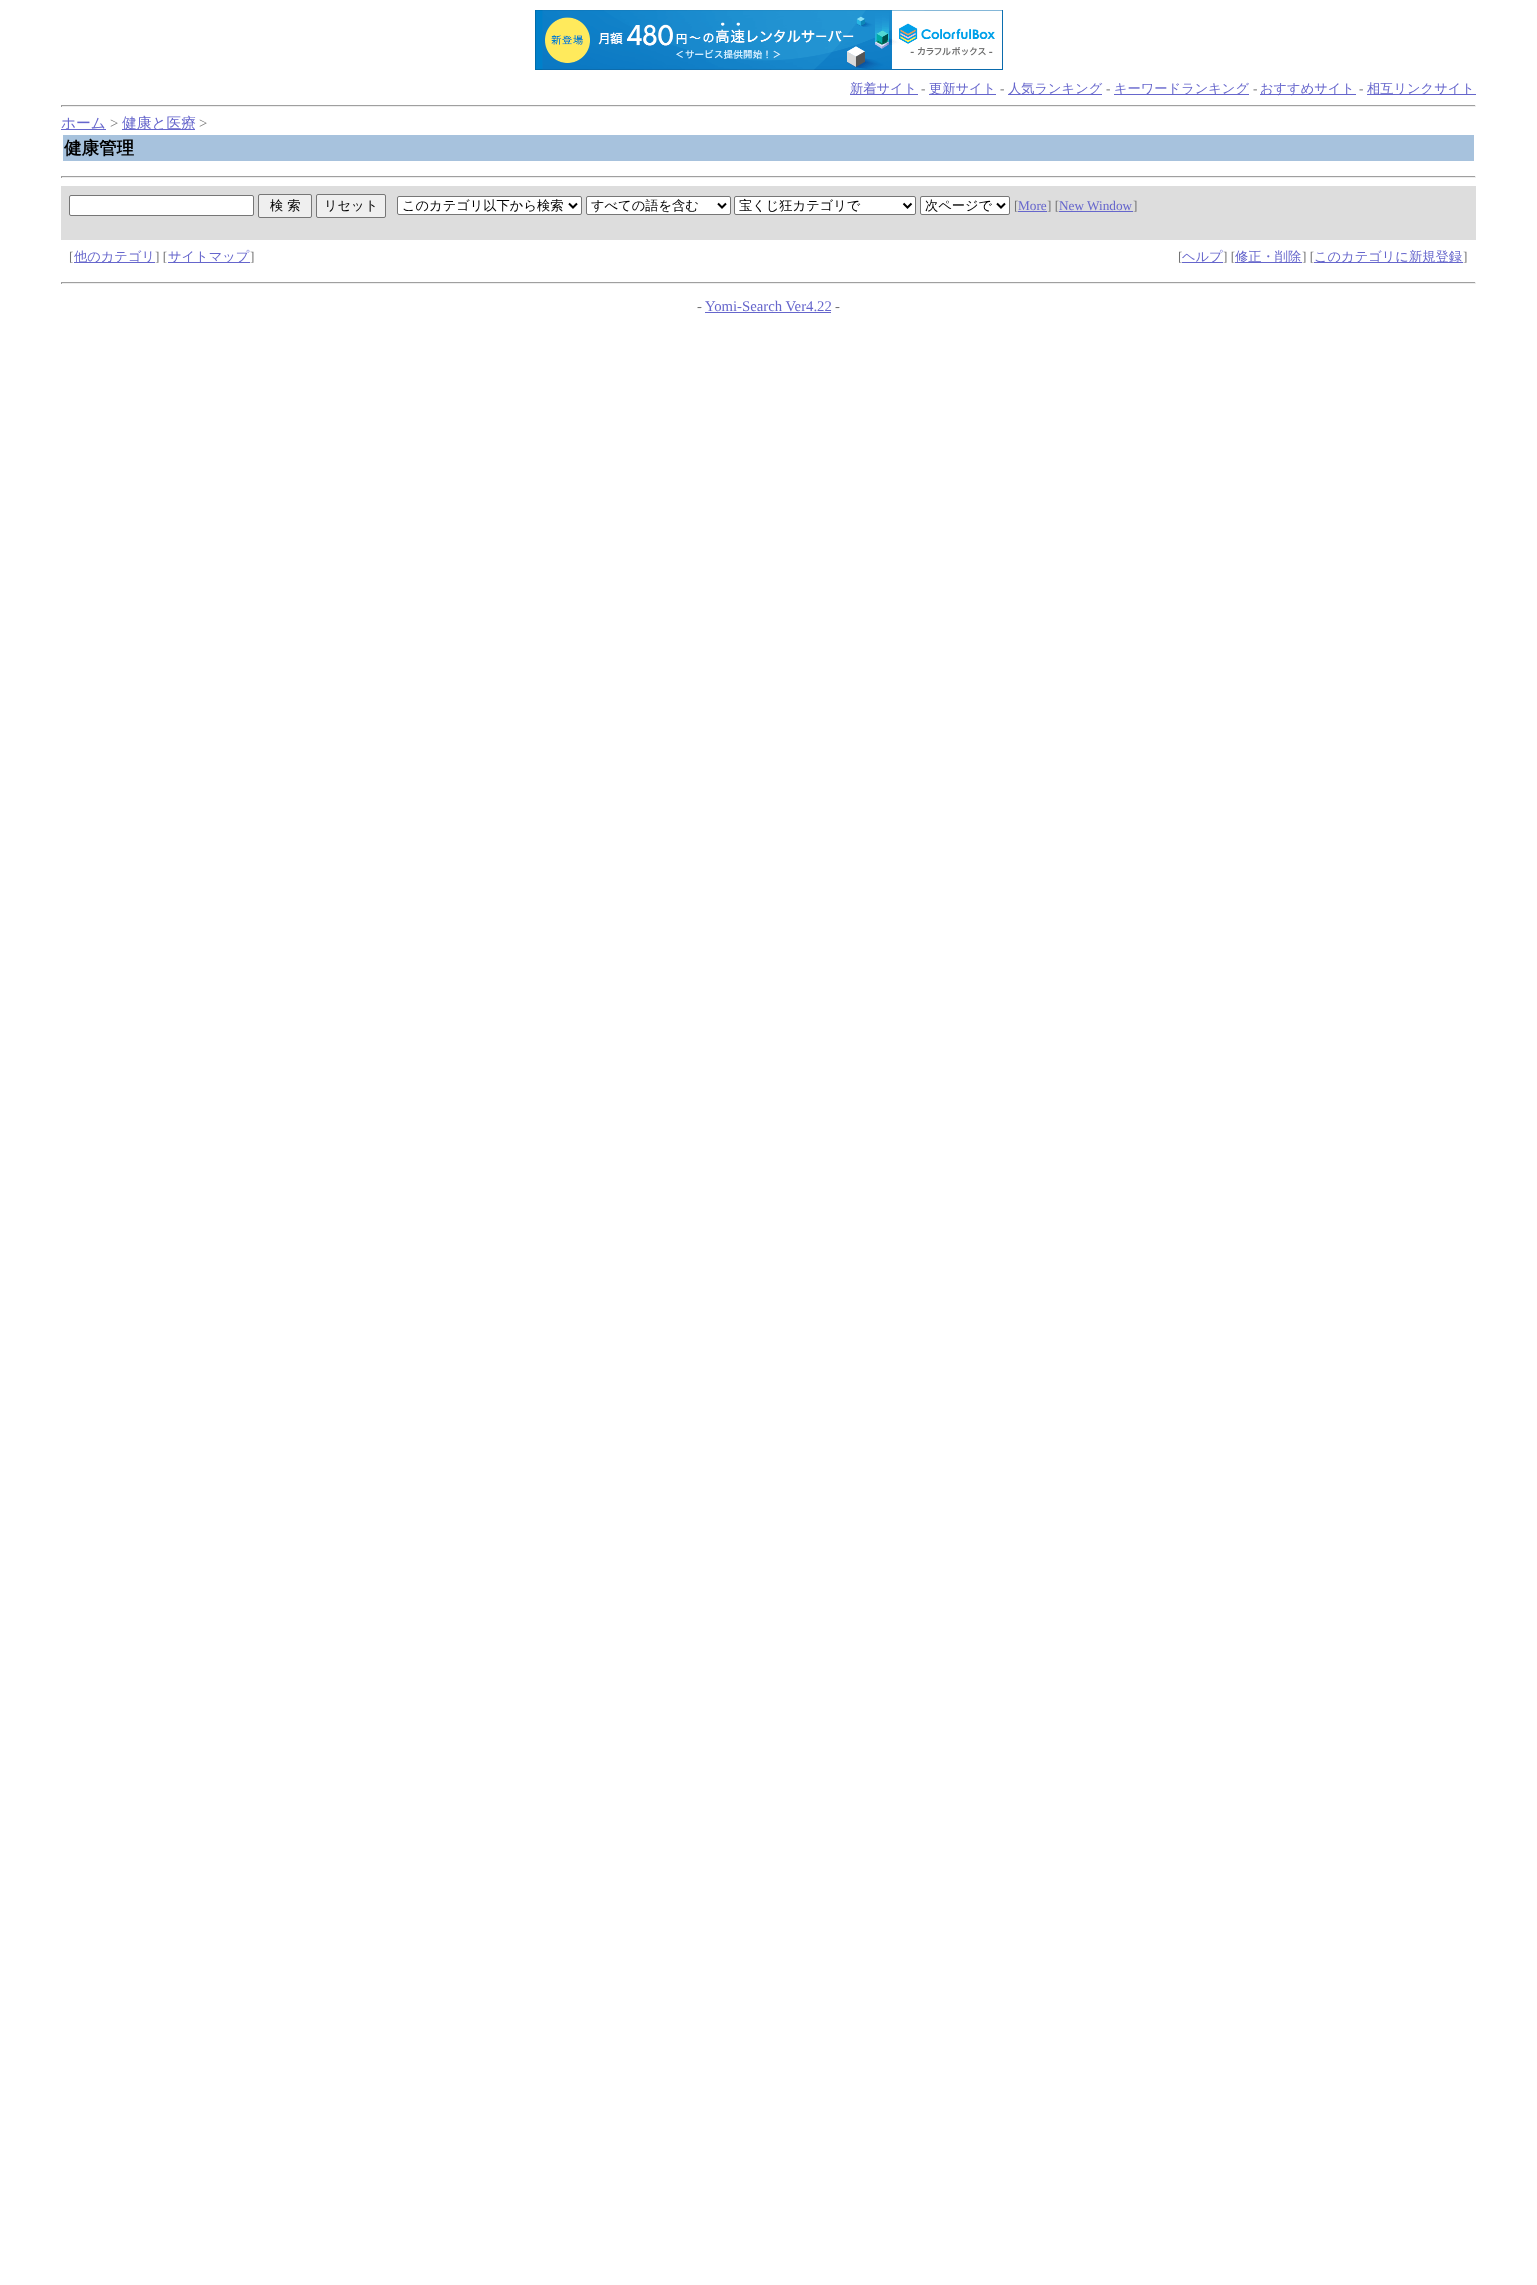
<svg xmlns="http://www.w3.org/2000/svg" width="1537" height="2285">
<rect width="100%" height="100%" fill="#fff"/>
<image x="535" y="10" width="468" height="60" href="media/1.png"/>
<rect x="850" y="94" width="68" height="1" fill="#66c"/>
<text x="850" y="93" style="font-family:WenQuanYi Zen Hei;font-size:13.25px;font-weight:500;fill:#66c">新着サイト</text>
<text x="921" y="93" style="font-family:Liberation Serif;font-size:13.25px;fill:#737373">-</text>
<rect x="929" y="94" width="67" height="1" fill="#66c"/>
<text x="929" y="93" style="font-family:WenQuanYi Zen Hei;font-size:13.25px;font-weight:500;fill:#66c">更新サイト</text>
<text x="1000" y="93" style="font-family:Liberation Serif;font-size:13.25px;fill:#737373">-</text>
<rect x="1008" y="94" width="94" height="1" fill="#66c"/>
<text x="1008" y="93" style="font-family:WenQuanYi Zen Hei;font-size:13.25px;font-weight:500;fill:#66c">人気ランキング</text>
<text x="1106" y="93" style="font-family:Liberation Serif;font-size:13.25px;fill:#737373">-</text>
<rect x="1114" y="94" width="135" height="1" fill="#66c"/>
<text x="1114" y="93" style="font-family:WenQuanYi Zen Hei;font-size:13.25px;font-weight:500;fill:#66c">キーワードランキング</text>
<text x="1253" y="93" style="font-family:Liberation Serif;font-size:13.25px;fill:#737373">-</text>
<rect x="1260" y="94" width="96" height="1" fill="#66c"/>
<text x="1260" y="93" style="font-family:WenQuanYi Zen Hei;font-size:13.25px;font-weight:500;fill:#66c">おすすめサイト</text>
<text x="1359" y="93" style="font-family:Liberation Serif;font-size:13.25px;fill:#737373">-</text>
<rect x="1367" y="94" width="109" height="1" fill="#66c"/>
<text x="1367" y="93" style="font-family:WenQuanYi Zen Hei;font-size:13.25px;font-weight:500;fill:#66c">相互リンクサイト</text>
<rect x="61" y="105" width="1415" height="1" fill="#9f9f9f"/>
<rect x="1475" y="105" width="1" height="2" fill="#eee"/>
<rect x="61" y="106" width="1415" height="1" fill="#eee"/>
<rect x="61" y="105" width="1" height="2" fill="#9f9f9f"/>
<rect x="61" y="129" width="45" height="1" fill="#66c"/>
<text x="61" y="128" style="font-family:WenQuanYi Zen Hei;font-size:14.75px;font-weight:500;fill:#66c">ホーム</text>
<text x="110" y="128" style="font-family:Liberation Serif;font-size:14.75px;fill:#737373">&gt;</text>
<rect x="122" y="129" width="73" height="1" fill="#66c"/>
<text x="122" y="128" style="font-family:WenQuanYi Zen Hei;font-size:14.75px;font-weight:500;fill:#66c">健康と医療</text>
<text x="199" y="128" style="font-family:Liberation Serif;font-size:14.75px;fill:#737373">&gt;</text>
<rect x="63" y="135" width="1411" height="26" fill="#a7c2dd"/>
<text x="64" y="154" style="font-family:WenQuanYi Zen Hei;font-size:17.5px;font-weight:bold;fill:#000">健康管理</text>
<rect x="61" y="176" width="1415" height="1" fill="#9f9f9f"/>
<rect x="1475" y="176" width="1" height="2" fill="#eee"/>
<rect x="61" y="177" width="1415" height="1" fill="#eee"/>
<rect x="61" y="176" width="1" height="2" fill="#9f9f9f"/>
<rect x="61" y="186" width="1415" height="54" fill="#ddd"/>
<rect x="69.5" y="195.5" width="184" height="20" rx="1.5" fill="#fff" stroke="#767676"/>
<rect x="258.5" y="194.5" width="53" height="23" rx="1.5" fill="#efefef" stroke="#767676"/>
<text x="270" y="210" style="font-family:WenQuanYi Zen Hei;font-size:13.25px;font-weight:500;fill:#000">検 索</text>
<rect x="316.5" y="194.5" width="69" height="23" rx="1.5" fill="#efefef" stroke="#767676"/>
<text x="324" y="210" style="font-family:WenQuanYi Zen Hei;font-size:13.25px;font-weight:500;fill:#000">リセット</text>
<rect x="397.5" y="196.5" width="184" height="18" rx="1.5" fill="#fff" stroke="#767676"/>
<path d="M569 203.5l4 4l4-4" fill="none" stroke="#000" stroke-width="2"/>
<text x="402" y="210" style="font-family:WenQuanYi Zen Hei;font-size:13.25px;font-weight:500;fill:#000">このカテゴリ以下から検索</text>
<rect x="586.5" y="196.5" width="144" height="18" rx="1.5" fill="#fff" stroke="#767676"/>
<path d="M718 203.5l4 4l4-4" fill="none" stroke="#000" stroke-width="2"/>
<text x="591" y="210" style="font-family:WenQuanYi Zen Hei;font-size:13.25px;font-weight:500;fill:#000">すべての語を含む</text>
<rect x="734.5" y="196.5" width="181" height="18" rx="1.5" fill="#fff" stroke="#767676"/>
<path d="M903.5 203.5l4 4l4-4" fill="none" stroke="#000" stroke-width="2"/>
<text x="739" y="210" style="font-family:WenQuanYi Zen Hei;font-size:13.25px;font-weight:500;fill:#000">宝くじ狂カテゴリで</text>
<rect x="920.5" y="196.5" width="89" height="18" rx="1.5" fill="#fff" stroke="#767676"/>
<path d="M997 203.5l4 4l4-4" fill="none" stroke="#000" stroke-width="2"/>
<text x="925" y="210" style="font-family:WenQuanYi Zen Hei;font-size:13.25px;font-weight:500;fill:#000">次ページで</text>
<text x="1014" y="210" style="font-family:Liberation Serif;font-size:13.25px;fill:#737373">[</text>
<rect x="1018" y="211" width="29" height="1" fill="#66c"/>
<text x="1018" y="210" style="font-family:Liberation Serif;font-size:13.25px;fill:#66c">More</text>
<text x="1047" y="210" style="font-family:Liberation Serif;font-size:13.25px;fill:#737373">] [</text>
<rect x="1059" y="211" width="74" height="1" fill="#66c"/>
<text x="1059" y="210" style="font-family:Liberation Serif;font-size:13.25px;fill:#66c">New Window</text>
<text x="1133" y="210" style="font-family:Liberation Serif;font-size:13.25px;fill:#737373">]</text>
<text x="69" y="261" style="font-family:Liberation Serif;font-size:13.25px;fill:#737373">[</text>
<rect x="74" y="262" width="81" height="1" fill="#66c"/>
<text x="74" y="261" style="font-family:WenQuanYi Zen Hei;font-size:13.25px;font-weight:500;fill:#66c">他のカテゴリ</text>
<text x="155" y="261" style="font-family:Liberation Serif;font-size:13.25px;fill:#737373">] [</text>
<rect x="168" y="262" width="82" height="1" fill="#66c"/>
<text x="168" y="261" style="font-family:WenQuanYi Zen Hei;font-size:13.25px;font-weight:500;fill:#66c">サイトマップ</text>
<text x="250" y="261" style="font-family:Liberation Serif;font-size:13.25px;fill:#737373">]</text>
<text x="1178" y="261" style="font-family:Liberation Serif;font-size:13.25px;fill:#737373">[</text>
<rect x="1182" y="262" width="41" height="1" fill="#66c"/>
<text x="1182" y="261" style="font-family:WenQuanYi Zen Hei;font-size:13.25px;font-weight:500;fill:#66c">ヘルプ</text>
<text x="1223" y="261" style="font-family:Liberation Serif;font-size:13.25px;fill:#737373">] [</text>
<rect x="1235" y="262" width="67" height="1" fill="#66c"/>
<text x="1235" y="261" style="font-family:WenQuanYi Zen Hei;font-size:13.25px;font-weight:500;fill:#66c">修正・削除</text>
<text x="1302" y="261" style="font-family:Liberation Serif;font-size:13.25px;fill:#737373">] [</text>
<rect x="1314" y="262" width="149" height="1" fill="#66c"/>
<text x="1314" y="261" style="font-family:WenQuanYi Zen Hei;font-size:13.25px;font-weight:500;fill:#66c">このカテゴリに新規登録</text>
<text x="1463" y="261" style="font-family:Liberation Serif;font-size:13.25px;fill:#737373">]</text>
<rect x="61" y="282" width="1415" height="1" fill="#9f9f9f"/>
<rect x="1475" y="282" width="1" height="2" fill="#eee"/>
<rect x="61" y="283" width="1415" height="1" fill="#eee"/>
<rect x="61" y="282" width="1" height="2" fill="#9f9f9f"/>
<text x="697" y="311" style="font-family:Liberation Serif;font-size:14.75px;fill:#737373">-</text>
<text x="705" y="311" style="font-family:Liberation Serif;font-size:14.75px;fill:#66c">Yomi-Search Ver4.22</text>
<rect x="705" y="312" width="126" height="1" fill="#66c"/>
<text x="835" y="311" style="font-family:Liberation Serif;font-size:14.75px;fill:#737373">-</text>
</svg>
